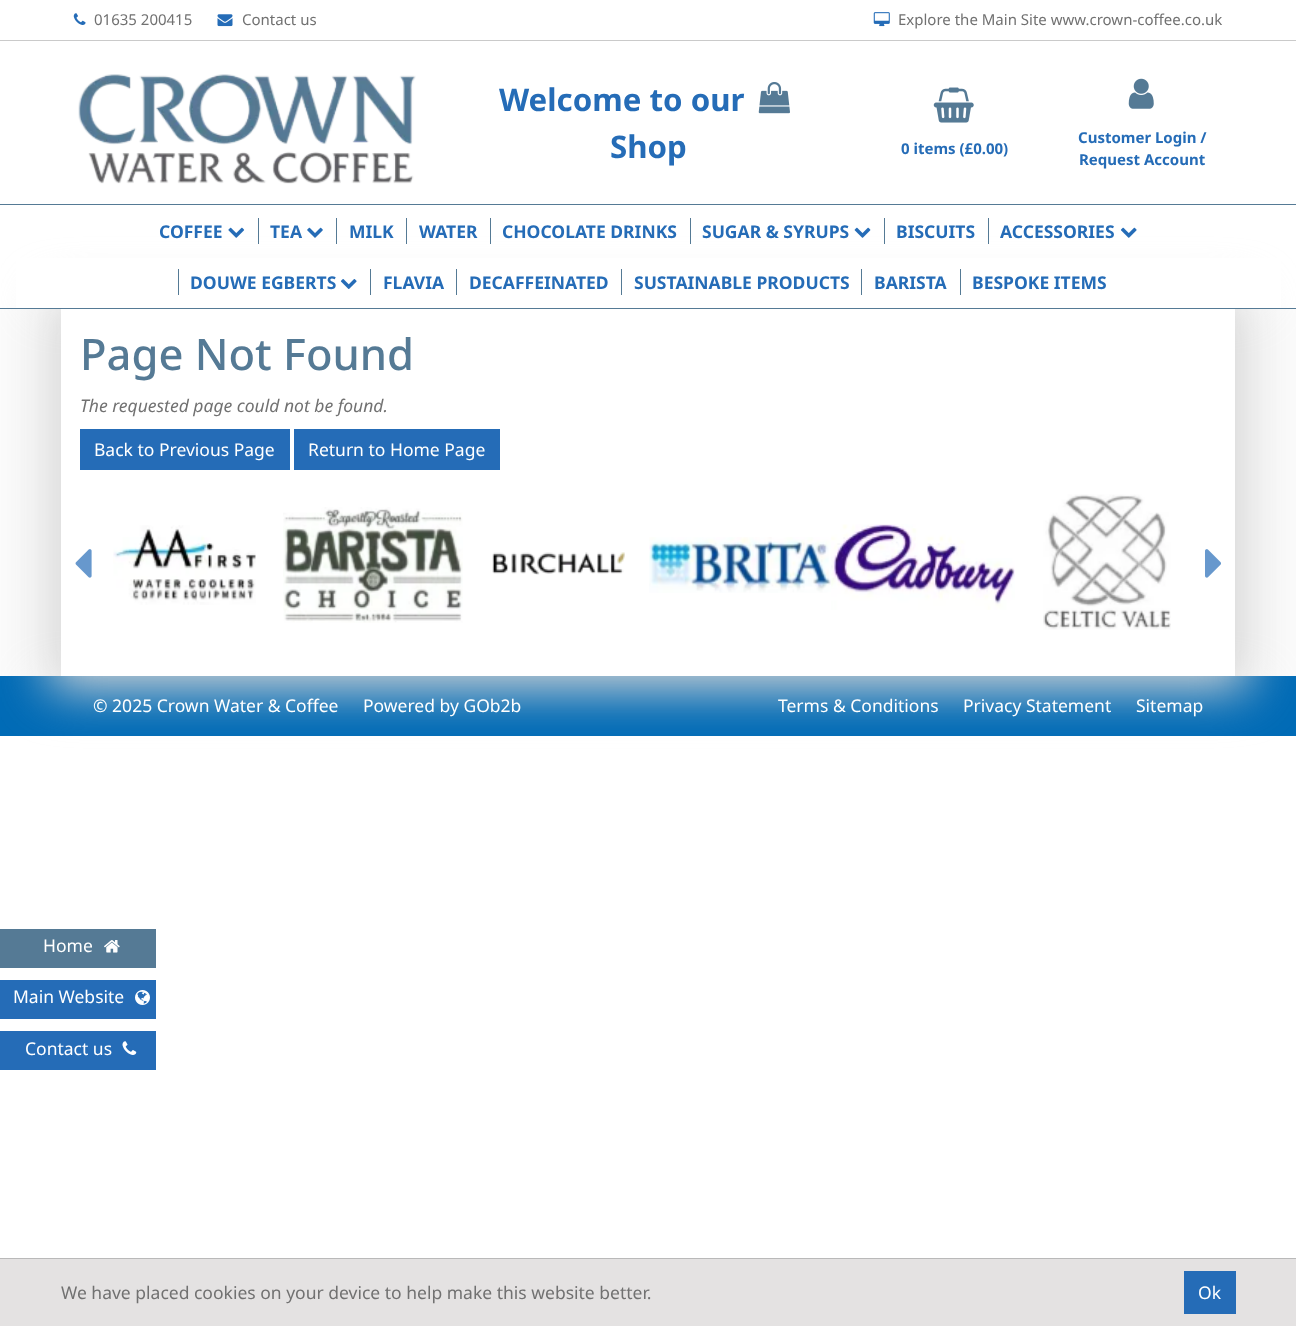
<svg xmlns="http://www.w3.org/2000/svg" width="1296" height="1326">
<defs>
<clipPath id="clip1"><path d="M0 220h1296v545h-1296zm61 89h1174v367h-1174z" clip-rule="evenodd"/></clipPath>
</defs>
<rect width="100%" height="100%" fill="#fff"/>
<rect y="40" width="1296" height="1" fill="#cacaca"/>
<image x="73" y="13" width="13" height="12" href="media/1.png"/>
<text x="94" y="25" style="font-family:Noto Sans;font-size:15px;fill:#717171">01635 200415</text>
<image x="217" y="14" width="16" height="13" href="media/2.png"/>
<text x="242" y="25" style="font-family:Noto Sans;font-size:15px;fill:#717171">Contact us</text>
<image x="873" y="12" width="17" height="15" href="media/3.png"/>
<text x="898" y="25" style="font-family:Noto Sans;font-size:15px;fill:#717171">Explore the Main Site www.crown-coffee.co.uk</text>
<image x="78" y="74" width="338" height="110" href="media/4.png"/>
<text x="499" y="111" style="font-family:Noto Sans;font-size:31.25px;font-weight:bold;fill:#256cb7">Welcome to our</text>
<image x="758" y="82" width="32" height="32" href="media/5.png"/>
<text x="610" y="158" style="font-family:Noto Sans;font-size:31.25px;font-weight:bold;fill:#256cb7">Shop</text>
<image x="933" y="87" width="41" height="36" href="media/6.png"/>
<text x="901" y="154" style="font-family:Noto Sans;font-size:15px;font-weight:bold;fill:#256cb7">0 items (£0.00)</text>
<image x="1128" y="78" width="26" height="31" href="media/7.png"/>
<text x="1078" y="143" style="font-family:Noto Sans;font-size:15px;font-weight:bold;fill:#256cb7">Customer Login /</text>
<text x="1079" y="165" style="font-family:Noto Sans;font-size:15px;font-weight:bold;fill:#256cb7">Request Account</text>
<rect y="309" width="1296" height="367" fill="#fbfbfb"/>
<rect y="676" width="1296" height="60" fill="#006bb6"/>
<g clip-path="url(#clip1)">
<rect x="49" y="296" width="1199" height="393" fill="#d6d6d6" filter="blur(25px)"/>
</g>
<rect x="16" y="258" width="1265" height="50" fill="#fff"/>
<rect y="204" width="1296" height="1" fill="#557a95"/>
<rect y="308" width="1296" height="1" fill="#557a95"/>
<text x="159" y="238" style="font-family:Noto Sans;font-size:17.5px;font-weight:bold;fill:#256cb7">COFFEE</text>
<image x="228" y="227" width="17" height="11" href="media/8.png"/>
<rect x="258" y="218" width="1" height="26" fill="#557a95"/>
<text x="270" y="238" style="font-family:Noto Sans;font-size:17.5px;font-weight:bold;fill:#256cb7">TEA</text>
<image x="307" y="227" width="16" height="11" href="media/9.png"/>
<rect x="336" y="218" width="1" height="26" fill="#557a95"/>
<text x="349" y="238" style="font-family:Noto Sans;font-size:17.5px;font-weight:bold;fill:#256cb7">MILK</text>
<rect x="406" y="218" width="1" height="26" fill="#557a95"/>
<text x="419" y="238" style="font-family:Noto Sans;font-size:17.5px;font-weight:bold;fill:#256cb7">WATER</text>
<rect x="490" y="218" width="1" height="26" fill="#557a95"/>
<text x="502" y="238" style="font-family:Noto Sans;font-size:17.5px;font-weight:bold;fill:#256cb7">CHOCOLATE DRINKS</text>
<rect x="690" y="218" width="1" height="26" fill="#557a95"/>
<text x="702" y="238" style="font-family:Noto Sans;font-size:17.5px;font-weight:bold;fill:#256cb7">SUGAR &amp; SYRUPS</text>
<image x="854" y="227" width="17" height="11" href="media/10.png"/>
<rect x="884" y="218" width="1" height="26" fill="#557a95"/>
<text x="896" y="238" style="font-family:Noto Sans;font-size:17.5px;font-weight:bold;fill:#256cb7">BISCUITS</text>
<rect x="988" y="218" width="1" height="26" fill="#557a95"/>
<text x="1000" y="238" style="font-family:Noto Sans;font-size:17.5px;font-weight:bold;fill:#256cb7">ACCESSORIES</text>
<image x="1120" y="227" width="17" height="11" href="media/11.png"/>
<rect x="178" y="269" width="1" height="26" fill="#557a95"/>
<text x="190" y="289" style="font-family:Noto Sans;font-size:17.5px;font-weight:bold;fill:#256cb7">DOUWE EGBERTS</text>
<image x="340" y="279" width="17" height="10" href="media/12.png"/>
<rect x="370" y="269" width="1" height="26" fill="#557a95"/>
<text x="383" y="289" style="font-family:Noto Sans;font-size:17.5px;font-weight:bold;fill:#256cb7">FLAVIA</text>
<rect x="456" y="269" width="1" height="26" fill="#557a95"/>
<text x="469" y="289" style="font-family:Noto Sans;font-size:17.5px;font-weight:bold;fill:#256cb7">DECAFFEINATED</text>
<rect x="621" y="269" width="1" height="26" fill="#557a95"/>
<text x="634" y="289" style="font-family:Noto Sans;font-size:17.5px;font-weight:bold;fill:#256cb7">SUSTAINABLE PRODUCTS</text>
<rect x="861" y="269" width="1" height="26" fill="#557a95"/>
<text x="874" y="289" style="font-family:Noto Sans;font-size:17.5px;font-weight:bold;fill:#256cb7">BARISTA</text>
<rect x="960" y="269" width="1" height="26" fill="#557a95"/>
<text x="972" y="289" style="font-family:Noto Sans;font-size:17.5px;font-weight:bold;fill:#256cb7">BESPOKE ITEMS</text>
<rect x="61" y="309" width="1174" height="367" fill="#ffffffe6"/>
<text x="80" y="370" style="font-family:Noto Sans;font-size:43.5px;font-weight:500;fill:#557a95">Page Not Found</text>
<text x="80" y="412" style="font-family:Noto Sans;font-size:17.5px;font-style:italic;fill:#717171">The requested page could not be found.</text>
<rect x="80" y="429" width="210" height="41" fill="#256cb7"/>
<text x="94" y="456" style="font-family:Noto Sans;font-size:17.5px;fill:#fff">Back to Previous Page</text>
<rect x="294" y="429" width="206" height="41" fill="#256cb7"/>
<text x="308" y="456" style="font-family:Noto Sans;font-size:17.5px;fill:#fff">Return to Home Page</text>
<image x="113" y="525" width="143" height="80" href="media/13.png"/>
<image x="283" y="507" width="180" height="116" href="media/14.png"/>
<image x="492" y="552" width="133" height="23" href="media/15.png"/>
<image x="649" y="537" width="182" height="56" href="media/16.png"/>
<image x="831" y="524" width="184" height="86" href="media/17.png"/>
<image x="1043" y="494" width="128" height="136" href="media/18.png"/>
<image x="75" y="549" width="17" height="29" href="media/19.png"/>
<image x="1205" y="549" width="16" height="29" href="media/20.png"/>
<rect y="929" width="156" height="39" fill="#557a95"/>
<text x="43" y="952" style="font-family:Noto Sans;font-size:17.5px;fill:#fff">Home</text>
<image x="104" y="940" width="16" height="13" href="media/21.png"/>
<rect y="980" width="156" height="39" fill="#256cb7"/>
<text x="13" y="1003" style="font-family:Noto Sans;font-size:17.5px;fill:#fff">Main Website</text>
<image x="135" y="990" width="15" height="15" href="media/22.png"/>
<rect y="1031" width="156" height="39" fill="#256cb7"/>
<text x="25" y="1055" style="font-family:Noto Sans;font-size:17.5px;fill:#fff">Contact us</text>
<image x="122" y="1041" width="15" height="14" href="media/23.png"/>
<text x="93" y="712" style="font-family:Noto Sans;font-size:17.5px;fill:#fff">© 2025 Crown Water &amp; Coffee</text>
<text x="363" y="712" style="font-family:Noto Sans;font-size:17.5px;fill:#fff">Powered by GOb2b</text>
<text x="778" y="712" style="font-family:Noto Sans;font-size:17.5px;fill:#fff">Terms &amp; Conditions</text>
<text x="963" y="712" style="font-family:Noto Sans;font-size:17.5px;fill:#fff">Privacy Statement</text>
<text x="1136" y="712" style="font-family:Noto Sans;font-size:17.5px;fill:#fff">Sitemap</text>
<rect y="1259" width="1296" height="67" fill="#e4e2e2"/>
<rect y="1258" width="1296" height="1" fill="#b9b9b9"/>
<text x="61" y="1299" style="font-family:Noto Sans;font-size:17.5px;fill:#717171">We have placed cookies on your device to help make this website better.</text>
<rect x="1184" y="1271" width="52" height="43" fill="#256cb7"/>
<text x="1198" y="1299" style="font-family:Noto Sans;font-size:17.5px;fill:#fff">Ok</text>
</svg>
